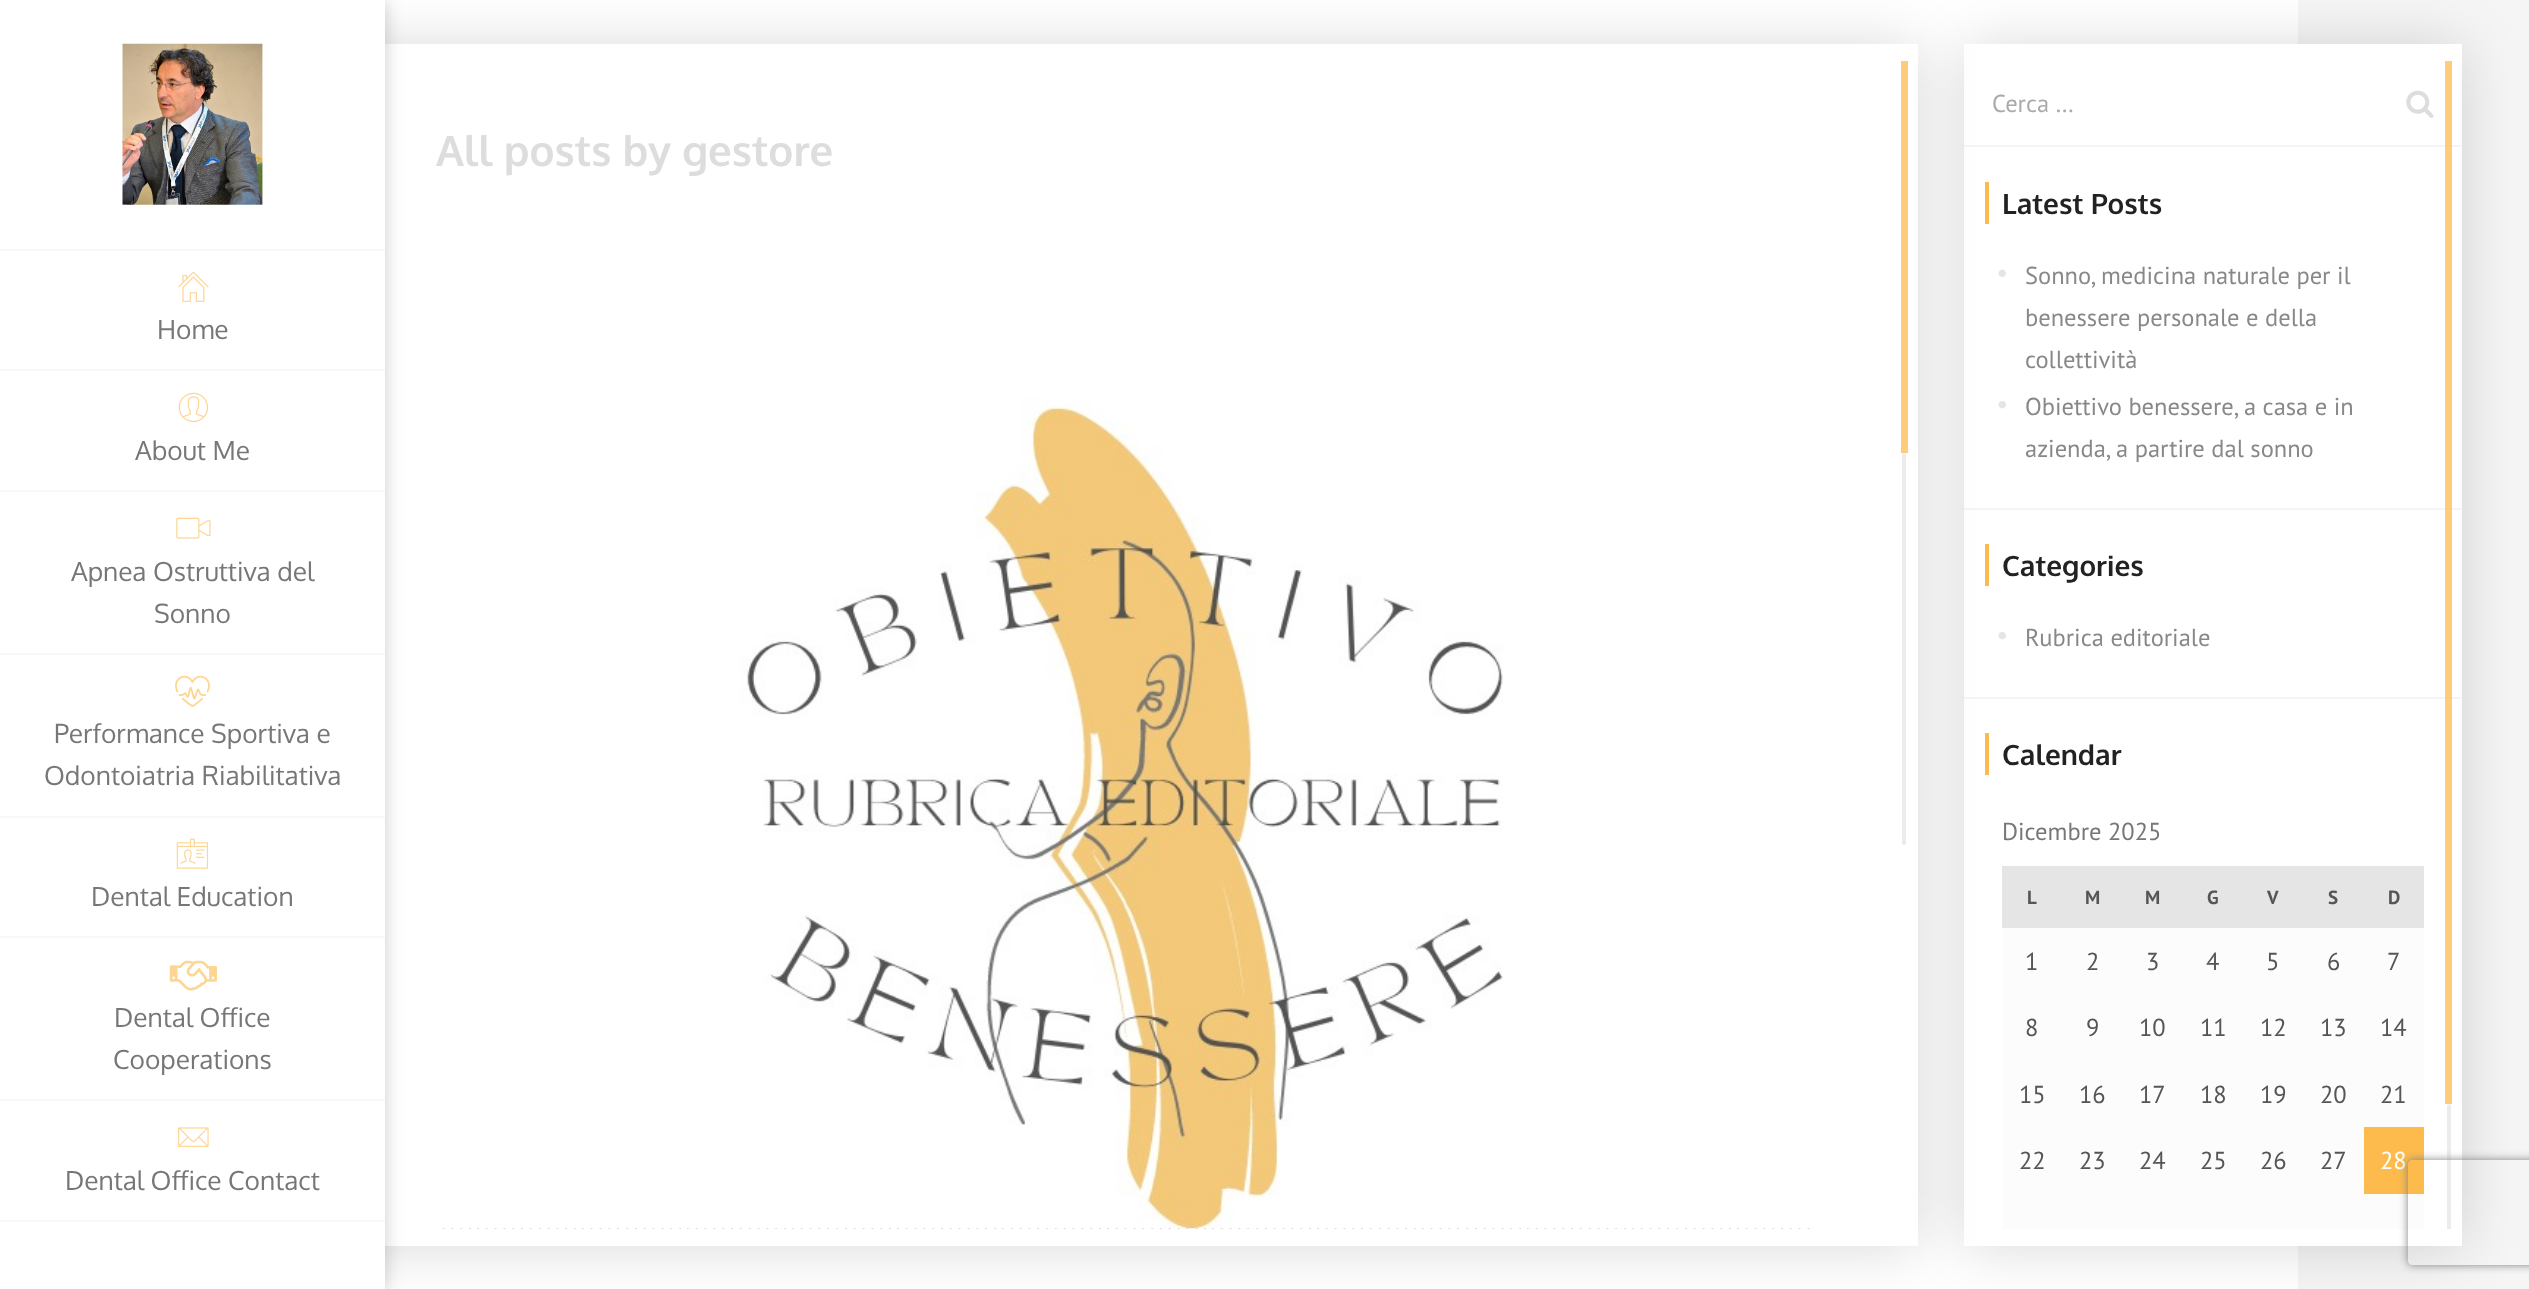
<svg xmlns="http://www.w3.org/2000/svg" width="2529" height="1289">
<defs>
<clipPath id="clip1"><path d="M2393 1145h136v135h-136zm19 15h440c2 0 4 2 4 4v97c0 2-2 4-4 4h-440c-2 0-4-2-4-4v-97c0-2 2-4 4-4z" clip-rule="evenodd"/></clipPath>
</defs>
<rect width="100%" height="100%" fill="#f5f5f5"/>
<image x="385" y="0" width="1913" height="1289" href="media/1.png"/>
<rect x="1964" y="46" width="498" height="1202" fill="#00000026" filter="blur(29px)"/>
<rect x="1964" y="44" width="498" height="1202" fill="#fff"/>
<rect x="2445" y="61" width="7" height="1043" fill="#fecc7a"/>
<rect x="1964" y="145" width="498" height="2" fill="#f5f5f5"/>
<rect x="1964" y="508" width="498" height="2" fill="#f5f5f5"/>
<rect x="1985" y="182" width="4" height="42" fill="#fdbb4d"/>
<image x="1998" y="269" width="8" height="8" href="media/13.png"/>
<image x="1998" y="401" width="8" height="8" href="media/14.png"/>
<rect x="1964" y="697" width="498" height="2" fill="#f5f5f5"/>
<rect x="1985" y="544" width="4" height="42" fill="#fdbb4d"/>
<image x="1998" y="632" width="8" height="8" href="media/14.png"/>
<rect x="1985" y="733" width="4" height="42" fill="#fdbb4d"/>
<rect x="2002" y="866" width="422" height="62" fill="#e5e5e5"/>
<rect x="2002" y="928" width="422" height="66" fill="#fcfcfc"/>
<rect x="2002" y="994" width="422" height="67" fill="#fcfcfc"/>
<rect x="2002" y="1061" width="422" height="66" fill="#fcfcfc"/>
<rect x="2002" y="1127" width="362" height="67" fill="#fcfcfc"/>
<rect x="2002" y="1194" width="422" height="35" fill="#fcfcfc"/>
<rect x="331" y="46" width="1587" height="1202" fill="#00000026" filter="blur(29px)"/>
<rect x="385" y="44" width="1533" height="1202" fill="#fff"/>
<rect y="2" width="385" height="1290" fill="#00000033" filter="blur(9px)"/>
<rect width="385" height="1289" fill="#fff"/>
<image x="122" y="43" width="141" height="162" href="media/2.png"/>
<rect y="249" width="385" height="2" fill="#f9f9f9"/>
<rect y="369" width="385" height="2" fill="#f9f9f9"/>
<image x="178" y="271" width="31" height="31" href="media/3.png"/>
<text x="157" y="339" style="font-family:Oxygen;font-size:26.25px;fill:#777">Home</text>
<rect y="490" width="385" height="2" fill="#f9f9f9"/>
<image x="178" y="392" width="31" height="31" href="media/4.png"/>
<text x="135" y="460" style="font-family:Oxygen;font-size:26.25px;fill:#777">About Me</text>
<rect y="653" width="385" height="2" fill="#f9f9f9"/>
<image x="176" y="517" width="35" height="22" href="media/5.png"/>
<text x="71" y="581" style="font-family:Oxygen;font-size:26.25px;fill:#777">Apnea Ostruttiva del</text>
<text x="154" y="623" style="font-family:Oxygen;font-size:26.25px;fill:#777">Sonno</text>
<rect y="816" width="385" height="2" fill="#f9f9f9"/>
<image x="175" y="675" width="35" height="32" href="media/6.png"/>
<text x="54" y="743" style="font-family:Oxygen;font-size:26.25px;fill:#777">Performance Sportiva e</text>
<text x="44" y="785" style="font-family:Oxygen;font-size:26.25px;fill:#777">Odontoiatria Riabilitativa</text>
<rect y="936" width="385" height="2" fill="#f9f9f9"/>
<image x="176" y="838" width="33" height="31" href="media/7.png"/>
<text x="91" y="906" style="font-family:Oxygen;font-size:26.25px;fill:#777">Dental Education</text>
<rect y="1099" width="385" height="2" fill="#f9f9f9"/>
<image x="169" y="960" width="48" height="31" href="media/8.png"/>
<text x="114" y="1027" style="font-family:Oxygen;font-size:26.25px;fill:#777">Dental Office</text>
<text x="113" y="1069" style="font-family:Oxygen;font-size:26.25px;fill:#777">Cooperations</text>
<rect y="1220" width="385" height="2" fill="#f9f9f9"/>
<image x="178" y="1127" width="31" height="20" href="media/9.png"/>
<text x="65" y="1190" style="font-family:Oxygen;font-size:26.25px;fill:#777">Dental Office Contact</text>
<text x="436" y="166" style="font-family:Oxygen;font-size:42px;font-weight:bold;fill:#ddd">All posts by gestore</text>
<rect x="442" y="1228" width="1368" height="1" fill="#b2b2b2"/>
<image x="436" y="1228" width="1377" height="1" href="media/10.png"/>
<image x="436" y="235" width="1377" height="994" href="media/11.png"/>
<rect x="1901" y="61" width="7" height="392" fill="#fecc7a"/>
<rect x="1902" y="453" width="4" height="392" rx="2" fill="#ececec"/>
<rect x="2445" y="145" width="7" height="2" fill="#fbca77"/>
<text x="1992" y="112" style="font-family:PT Sans;font-size:24.5px;fill:#aaa">Cerca …</text>
<image x="2406" y="90" width="28" height="28" href="media/12.png"/>
<rect x="2445" y="508" width="7" height="2" fill="#fbca77"/>
<text x="2002" y="214" style="font-family:Oxygen;font-size:28px;font-weight:bold;fill:#222">Latest Posts</text>
<text x="2025" y="284" style="font-family:PT Sans;font-size:24.5px;fill:#888">Sonno, medicina naturale per il</text>
<text x="2025" y="326" style="font-family:PT Sans;font-size:24.5px;fill:#888">benessere personale e della</text>
<text x="2025" y="368" style="font-family:PT Sans;font-size:24.5px;fill:#888">collettività</text>
<text x="2025" y="415" style="font-family:PT Sans;font-size:24.5px;fill:#888">Obiettivo benessere, a casa e in</text>
<text x="2025" y="457" style="font-family:PT Sans;font-size:24.5px;fill:#888">azienda, a partire dal sonno</text>
<rect x="2445" y="697" width="7" height="2" fill="#fbca77"/>
<text x="2002" y="576" style="font-family:Oxygen;font-size:28px;font-weight:bold;fill:#222">Categories</text>
<text x="2025" y="646" style="font-family:PT Sans;font-size:24.5px;fill:#888">Rubrica editoriale</text>
<text x="2002" y="765" style="font-family:Oxygen;font-size:28px;font-weight:bold;fill:#222">Calendar</text>
<text x="2002" y="840" style="font-family:PT Sans;font-size:24.5px;fill:#777">Dicembre 2025</text>
<text x="2027" y="904" style="font-family:PT Sans;font-size:19px;font-weight:bold;fill:#555">L</text>
<text x="2085" y="904" style="font-family:PT Sans;font-size:19px;font-weight:bold;fill:#555">M</text>
<text x="2145" y="904" style="font-family:PT Sans;font-size:19px;font-weight:bold;fill:#555">M</text>
<text x="2207" y="904" style="font-family:PT Sans;font-size:19px;font-weight:bold;fill:#555">G</text>
<text x="2267" y="904" style="font-family:PT Sans;font-size:19px;font-weight:bold;fill:#555">V</text>
<text x="2328" y="904" style="font-family:PT Sans;font-size:19px;font-weight:bold;fill:#555">S</text>
<text x="2388" y="904" style="font-family:PT Sans;font-size:19px;font-weight:bold;fill:#555">D</text>
<text x="2025" y="970" style="font-family:PT Sans;font-size:24.5px;fill:#555">1</text>
<text x="2086" y="970" style="font-family:PT Sans;font-size:24.5px;fill:#555">2</text>
<text x="2146" y="970" style="font-family:PT Sans;font-size:24.5px;fill:#555">3</text>
<text x="2206" y="970" style="font-family:PT Sans;font-size:24.5px;fill:#555">4</text>
<text x="2266" y="970" style="font-family:PT Sans;font-size:24.5px;fill:#555">5</text>
<text x="2327" y="970" style="font-family:PT Sans;font-size:24.5px;fill:#555">6</text>
<text x="2387" y="970" style="font-family:PT Sans;font-size:24.5px;fill:#555">7</text>
<text x="2025" y="1036" style="font-family:PT Sans;font-size:24.5px;fill:#555">8</text>
<text x="2086" y="1036" style="font-family:PT Sans;font-size:24.5px;fill:#555">9</text>
<text x="2139" y="1036" style="font-family:PT Sans;font-size:24.5px;fill:#555">10</text>
<text x="2200" y="1036" style="font-family:PT Sans;font-size:24.5px;fill:#555">11</text>
<text x="2260" y="1036" style="font-family:PT Sans;font-size:24.5px;fill:#555">12</text>
<text x="2320" y="1036" style="font-family:PT Sans;font-size:24.5px;fill:#555">13</text>
<text x="2380" y="1036" style="font-family:PT Sans;font-size:24.5px;fill:#555">14</text>
<text x="2019" y="1103" style="font-family:PT Sans;font-size:24.5px;fill:#555">15</text>
<text x="2079" y="1103" style="font-family:PT Sans;font-size:24.5px;fill:#555">16</text>
<text x="2139" y="1103" style="font-family:PT Sans;font-size:24.5px;fill:#555">17</text>
<text x="2200" y="1103" style="font-family:PT Sans;font-size:24.5px;fill:#555">18</text>
<text x="2260" y="1103" style="font-family:PT Sans;font-size:24.5px;fill:#555">19</text>
<text x="2320" y="1103" style="font-family:PT Sans;font-size:24.5px;fill:#555">20</text>
<text x="2380" y="1103" style="font-family:PT Sans;font-size:24.5px;fill:#555">21</text>
<text x="2019" y="1169" style="font-family:PT Sans;font-size:24.5px;fill:#555">22</text>
<text x="2079" y="1169" style="font-family:PT Sans;font-size:24.5px;fill:#555">23</text>
<text x="2139" y="1169" style="font-family:PT Sans;font-size:24.5px;fill:#555">24</text>
<text x="2200" y="1169" style="font-family:PT Sans;font-size:24.5px;fill:#555">25</text>
<text x="2260" y="1169" style="font-family:PT Sans;font-size:24.5px;fill:#555">26</text>
<text x="2320" y="1169" style="font-family:PT Sans;font-size:24.5px;fill:#555">27</text>
<rect x="2364" y="1127" width="60" height="67" fill="#fdbb4d"/>
<text x="2380" y="1169" style="font-family:PT Sans;font-size:24.5px;fill:#fff">28</text>
<path d="M2449 1104c1 0 2 1 2 2v123h-4v-123c0-1 1-2 2-2z" fill="#ececec"/>
<g clip-path="url(#clip1)">
<rect x="2408" y="1160" width="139" height="105" rx="4" fill="#808080" filter="blur(4.5px)"/>
</g>
</svg>
